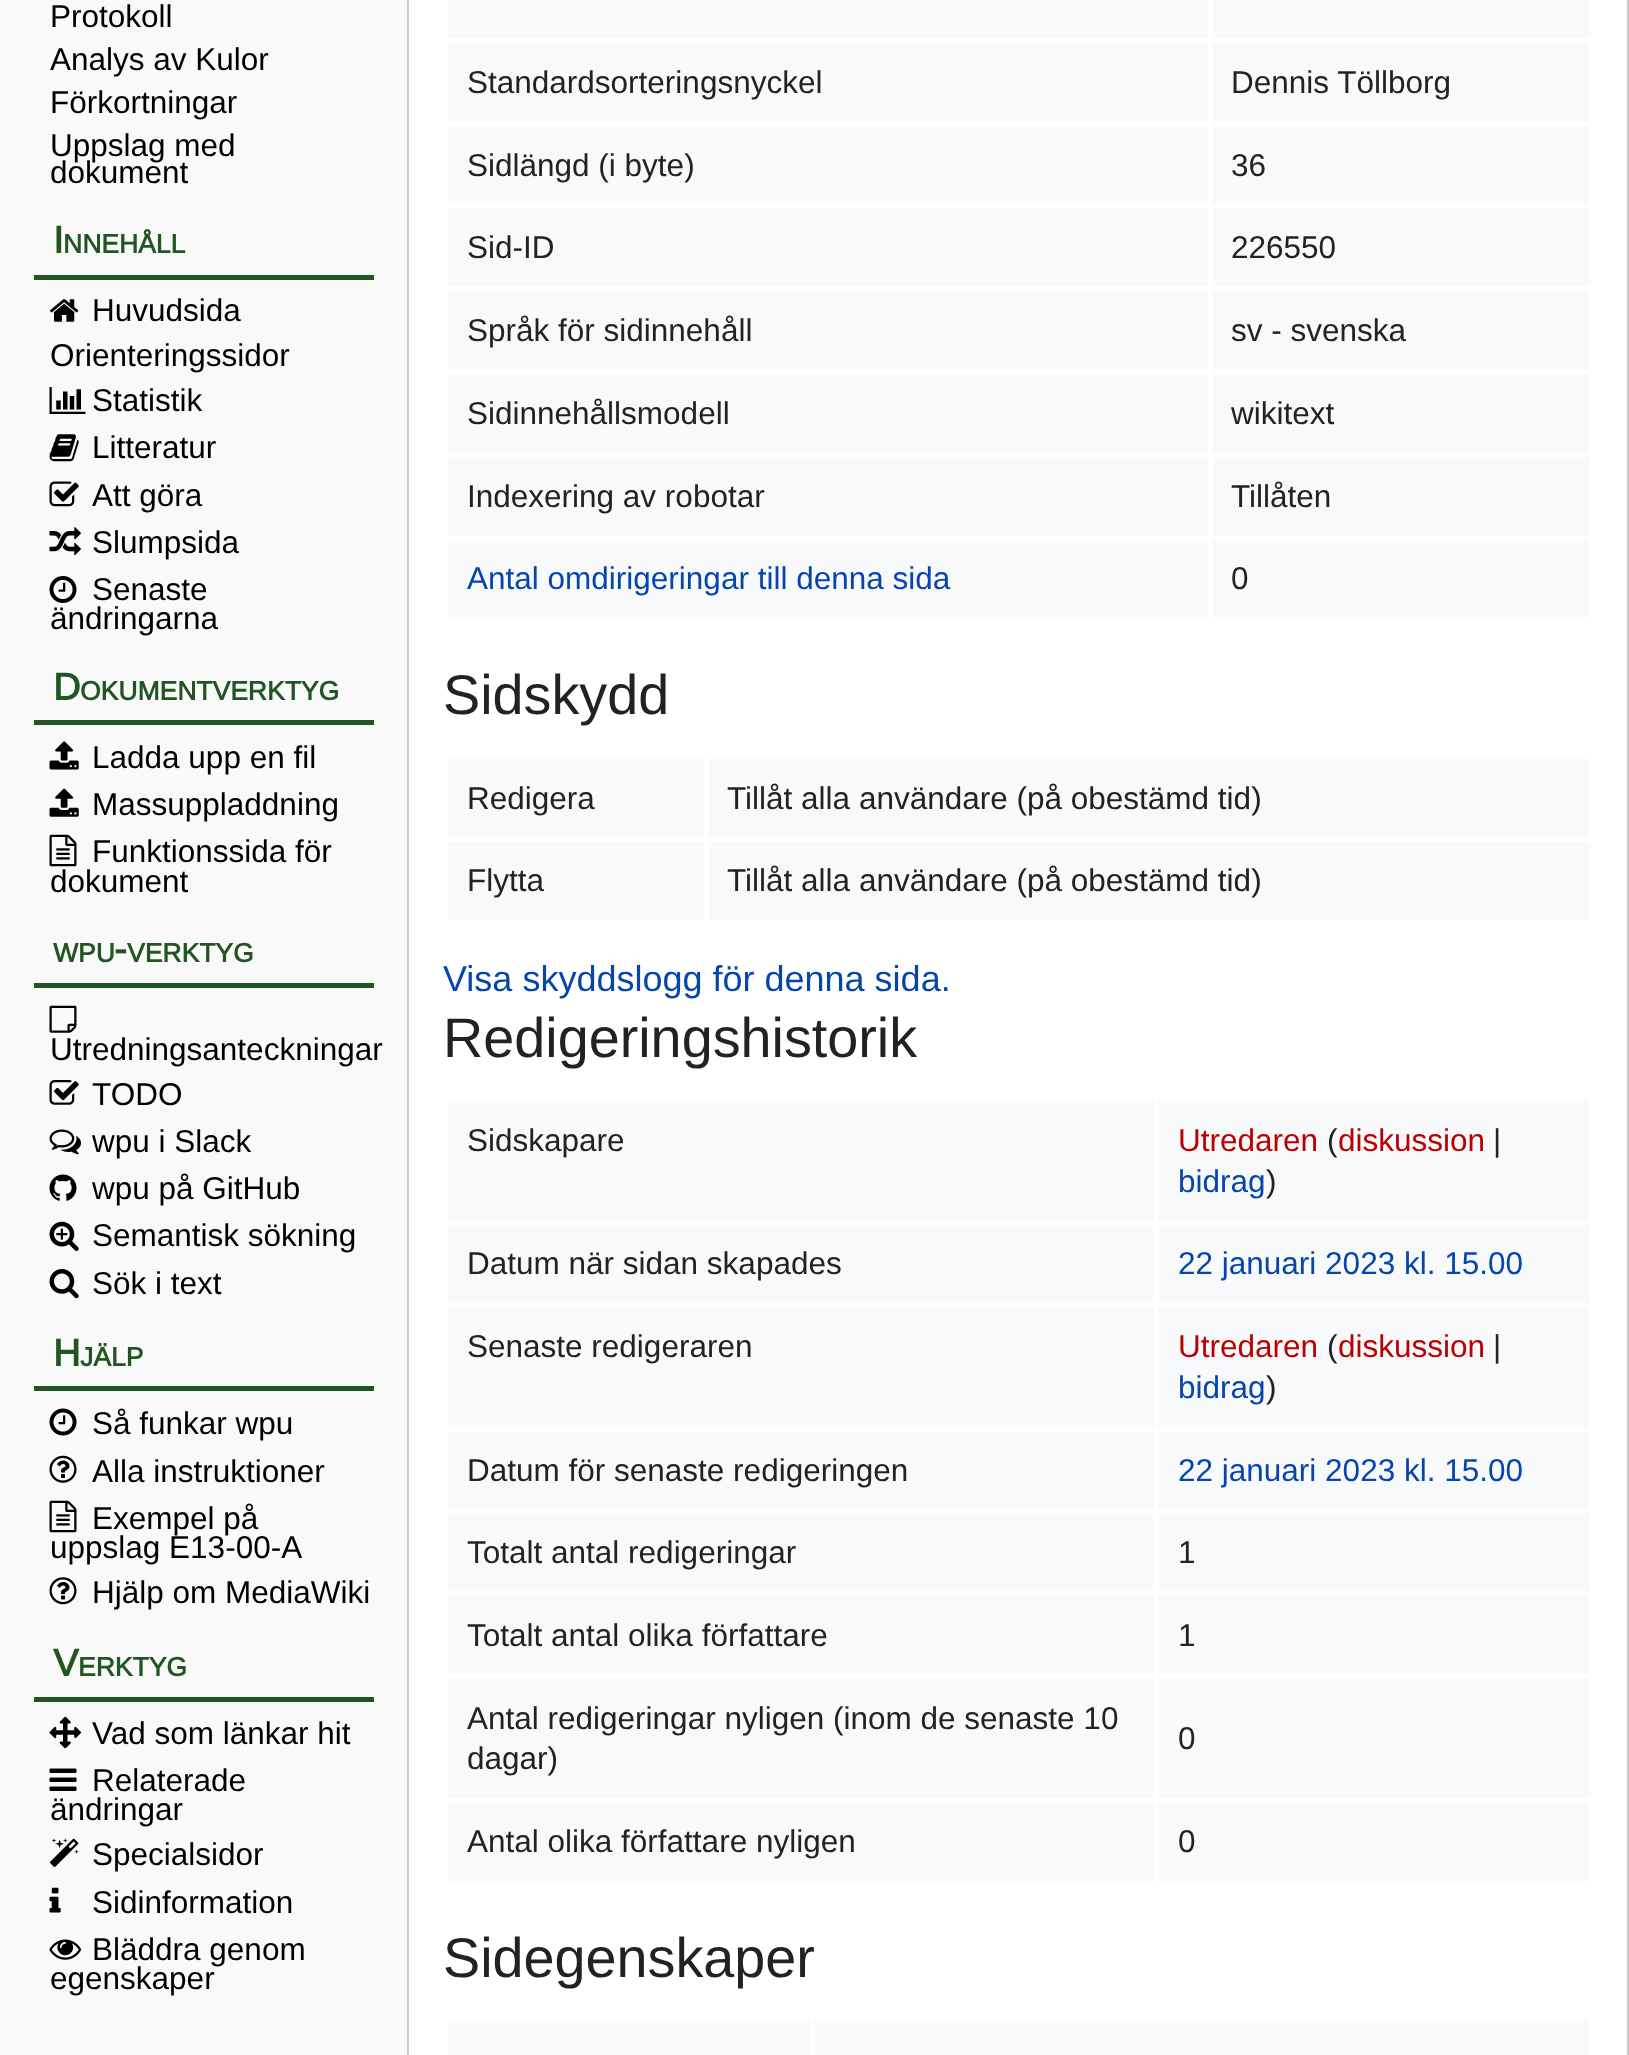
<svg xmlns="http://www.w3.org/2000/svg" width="1629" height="2055">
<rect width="100%" height="100%" fill="#f9f9f9"/>
<text x="50" y="27" style="font-family:Arimo;font-size:31.5px;fill:#000">Protokoll</text>
<text x="50" y="70" style="font-family:Arimo;font-size:31.5px;fill:#000">Analys av Kulor</text>
<text x="50" y="113" style="font-family:Arimo;font-size:31.5px;fill:#000">Förkortningar</text>
<text x="50" y="156" style="font-family:Arimo;font-size:31.5px;fill:#000">Uppslag med</text>
<text x="50" y="183" style="font-family:Arimo;font-size:31.5px;fill:#000">dokument</text>
<rect x="34" y="275" width="340" height="5" fill="#252"/>
<text x="53" y="253" style="font-family:Arimo;font-size:38px;font-weight:bold;fill:#252">I</text>
<text x="63" y="253" style="font-family:Arimo;font-size:26.5px;font-weight:bold;fill:#252">NNEHÅLL</text>
<image x="50" y="299" width="29" height="23" href="media/1.png"/>
<text x="92" y="321" style="font-family:Arimo;font-size:31.5px;fill:#000">Huvudsida</text>
<text x="50" y="366" style="font-family:Arimo;font-size:31.5px;fill:#000">Orienteringssidor</text>
<image x="49" y="387" width="37" height="27" href="media/2.png"/>
<text x="92" y="411" style="font-family:Arimo;font-size:31.5px;fill:#000">Statistik</text>
<image x="49" y="434" width="30" height="28" href="media/3.png"/>
<text x="92" y="458" style="font-family:Arimo;font-size:31.5px;fill:#000">Litteratur</text>
<image x="49" y="481" width="30" height="26" href="media/4.png"/>
<text x="92" y="506" style="font-family:Arimo;font-size:31.5px;fill:#000">Att göra</text>
<image x="49" y="527" width="32" height="29" href="media/5.png"/>
<text x="92" y="553" style="font-family:Arimo;font-size:31.5px;fill:#000">Slumpsida</text>
<image x="49" y="576" width="28" height="27" href="media/6.png"/>
<text x="92" y="600" style="font-family:Arimo;font-size:31.5px;fill:#000">Senaste</text>
<text x="50" y="629" style="font-family:Arimo;font-size:31.5px;fill:#000">ändringarna</text>
<rect x="34" y="720" width="340" height="5" fill="#252"/>
<text x="53" y="700" style="font-family:Arimo;font-size:38px;font-weight:bold;fill:#252">D</text>
<text x="80" y="700" style="font-family:Arimo;font-size:26.5px;font-weight:bold;fill:#252">OKUMENTVERKTYG</text>
<image x="49" y="741" width="30" height="29" href="media/7.png"/>
<text x="92" y="768" style="font-family:Arimo;font-size:31.5px;fill:#000">Ladda upp en fil</text>
<image x="49" y="788" width="30" height="29" href="media/8.png"/>
<text x="92" y="815" style="font-family:Arimo;font-size:31.5px;fill:#000">Massuppladdning</text>
<image x="49" y="834" width="28" height="33" href="media/9.png"/>
<text x="92" y="862" style="font-family:Arimo;font-size:31.5px;fill:#000">Funktionssida för</text>
<text x="50" y="892" style="font-family:Arimo;font-size:31.5px;fill:#000">dokument</text>
<rect x="34" y="983" width="340" height="5" fill="#252"/>
<text x="53" y="962" style="font-family:Arimo;font-size:26.5px;font-weight:bold;fill:#252">WPU</text>
<text x="114" y="962" style="font-family:Arimo;font-size:38px;font-weight:bold;fill:#252">-</text>
<text x="127" y="962" style="font-family:Arimo;font-size:26.5px;font-weight:bold;fill:#252">VERKTYG</text>
<image x="49" y="1005" width="28" height="28" href="media/10.png"/>
<text x="50" y="1060" style="font-family:Arimo;font-size:31.5px;fill:#000">Utredningsanteckningar</text>
<image x="49" y="1080" width="30" height="25" href="media/11.png"/>
<text x="92" y="1105" style="font-family:Arimo;font-size:31.5px;fill:#000">TODO</text>
<image x="49" y="1129" width="32" height="26" href="media/12.png"/>
<text x="92" y="1152" style="font-family:Arimo;font-size:31.5px;fill:#000">wpu i Slack</text>
<image x="49" y="1174" width="28" height="27" href="media/13.png"/>
<text x="92" y="1199" style="font-family:Arimo;font-size:31.5px;fill:#000">wpu på GitHub</text>
<image x="49" y="1221" width="30" height="30" href="media/14.png"/>
<text x="92" y="1246" style="font-family:Arimo;font-size:31.5px;fill:#000">Semantisk sökning</text>
<image x="49" y="1269" width="30" height="30" href="media/15.png"/>
<text x="92" y="1294" style="font-family:Arimo;font-size:31.5px;fill:#000">Sök i text</text>
<rect x="34" y="1386" width="340" height="5" fill="#252"/>
<text x="53" y="1366" style="font-family:Arimo;font-size:38px;font-weight:bold;fill:#252">H</text>
<text x="80" y="1366" style="font-family:Arimo;font-size:26.5px;font-weight:bold;fill:#252">JÄLP</text>
<image x="49" y="1408" width="28" height="28" href="media/16.png"/>
<text x="92" y="1434" style="font-family:Arimo;font-size:31.5px;fill:#000">Så funkar wpu</text>
<image x="49" y="1455" width="28" height="28" href="media/17.png"/>
<text x="92" y="1482" style="font-family:Arimo;font-size:31.5px;fill:#000">Alla instruktioner</text>
<image x="49" y="1500" width="28" height="33" href="media/9.png"/>
<text x="92" y="1529" style="font-family:Arimo;font-size:31.5px;fill:#000">Exempel på</text>
<text x="50" y="1558" style="font-family:Arimo;font-size:31.5px;fill:#000">uppslag E13-00-A</text>
<image x="49" y="1577" width="28" height="28" href="media/18.png"/>
<text x="92" y="1603" style="font-family:Arimo;font-size:31.5px;fill:#000">Hjälp om MediaWiki</text>
<rect x="34" y="1697" width="340" height="5" fill="#252"/>
<text x="53" y="1676" style="font-family:Arimo;font-size:38px;font-weight:bold;fill:#252">V</text>
<text x="78" y="1676" style="font-family:Arimo;font-size:26.5px;font-weight:bold;fill:#252">ERKTYG</text>
<image x="49" y="1716" width="32" height="33" href="media/19.png"/>
<text x="92" y="1744" style="font-family:Arimo;font-size:31.5px;fill:#000">Vad som länkar hit</text>
<image x="49" y="1768" width="28" height="23" href="media/20.png"/>
<text x="92" y="1791" style="font-family:Arimo;font-size:31.5px;fill:#000">Relaterade</text>
<text x="50" y="1820" style="font-family:Arimo;font-size:31.5px;fill:#000">ändringar</text>
<image x="50" y="1838" width="29" height="29" href="media/21.png"/>
<text x="92" y="1865" style="font-family:Arimo;font-size:31.5px;fill:#000">Specialsidor</text>
<image x="49" y="1887" width="12" height="26" href="media/22.png"/>
<text x="92" y="1913" style="font-family:Arimo;font-size:31.5px;fill:#000">Sidinformation</text>
<image x="49" y="1939" width="32" height="21" href="media/23.png"/>
<text x="92" y="1960" style="font-family:Arimo;font-size:31.5px;fill:#000">Bläddra genom</text>
<text x="50" y="1989" style="font-family:Arimo;font-size:31.5px;fill:#000">egenskaper</text>
<rect x="408" y="-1" width="1220" height="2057" fill="#fff" stroke="#ccc" stroke-width="2"/>
<rect x="448" width="1141" height="617" fill="#f8f9fa"/>
<rect x="1208" y="38" width="385" height="5" fill="#fff"/>
<rect x="1208" y="122" width="385" height="5" fill="#fff"/>
<rect x="1208" y="203" width="385" height="5" fill="#fff"/>
<rect x="1208" y="286" width="385" height="5" fill="#fff"/>
<rect x="1208" y="369" width="385" height="5" fill="#fff"/>
<rect x="1208" y="452" width="385" height="5" fill="#fff"/>
<rect x="1208" y="536" width="385" height="5" fill="#fff"/>
<rect x="1208" y="536" width="5" height="85" fill="#fff"/>
<rect x="443" y="536" width="770" height="5" fill="#fff"/>
<rect x="1208" y="452" width="5" height="88" fill="#fff"/>
<rect x="443" y="452" width="770" height="5" fill="#fff"/>
<rect x="1208" y="369" width="5" height="88" fill="#fff"/>
<rect x="443" y="369" width="770" height="5" fill="#fff"/>
<rect x="1208" y="286" width="5" height="88" fill="#fff"/>
<rect x="443" y="286" width="770" height="5" fill="#fff"/>
<rect x="1208" y="203" width="5" height="87" fill="#fff"/>
<rect x="443" y="203" width="770" height="5" fill="#fff"/>
<rect x="1208" y="122" width="5" height="85" fill="#fff"/>
<rect x="443" y="122" width="770" height="5" fill="#fff"/>
<rect x="1208" y="38" width="5" height="88" fill="#fff"/>
<rect x="443" y="38" width="770" height="5" fill="#fff"/>
<rect x="1208" width="5" height="43" fill="#fff"/>
<text x="467" y="93" style="font-family:Arimo;font-size:31.5px;fill:#222">Standardsorteringsnyckel</text>
<text x="1231" y="93" style="font-family:Arimo;font-size:31.5px;fill:#222">Dennis Töllborg</text>
<text x="467" y="176" style="font-family:Arimo;font-size:31.5px;fill:#222">Sidlängd (i byte)</text>
<text x="1231" y="176" style="font-family:Arimo;font-size:31.5px;fill:#222">36</text>
<text x="467" y="258" style="font-family:Arimo;font-size:31.5px;fill:#222">Sid-ID</text>
<text x="1231" y="258" style="font-family:Arimo;font-size:31.5px;fill:#222">226550</text>
<text x="467" y="341" style="font-family:Arimo;font-size:31.5px;fill:#222">Språk för sidinnehåll</text>
<text x="1231" y="341" style="font-family:Arimo;font-size:31.5px;fill:#222">sv - svenska</text>
<text x="467" y="424" style="font-family:Arimo;font-size:31.5px;fill:#222">Sidinnehållsmodell</text>
<text x="1231" y="424" style="font-family:Arimo;font-size:31.5px;fill:#222">wikitext</text>
<text x="467" y="507" style="font-family:Arimo;font-size:31.5px;fill:#222">Indexering av robotar</text>
<text x="1231" y="507" style="font-family:Arimo;font-size:31.5px;fill:#222">Tillåten</text>
<text x="467" y="589" style="font-family:Arimo;font-size:31.5px;fill:#0645ad">Antal omdirigeringar till denna sida</text>
<text x="1231" y="589" style="font-family:Arimo;font-size:31.5px;fill:#222">0</text>
<text x="443" y="714" style="font-family:Liberation Sans;font-size:55.75px;fill:#222">Sidskydd</text>
<rect x="448" y="759" width="1141" height="161" fill="#f8f9fa"/>
<text x="467" y="809" style="font-family:Arimo;font-size:31.5px;fill:#222">Redigera</text>
<rect x="704" y="837" width="889" height="5" fill="#fff"/>
<rect x="704" y="837" width="5" height="88" fill="#fff"/>
<rect x="443" y="837" width="266" height="5" fill="#fff"/>
<rect x="704" y="754" width="5" height="88" fill="#fff"/>
<text x="727" y="809" style="font-family:Arimo;font-size:31.5px;fill:#222">Tillåt alla användare (på obestämd tid)</text>
<text x="467" y="891" style="font-family:Arimo;font-size:31.5px;fill:#222">Flytta</text>
<text x="727" y="891" style="font-family:Arimo;font-size:31.5px;fill:#222">Tillåt alla användare (på obestämd tid)</text>
<text x="443" y="991" style="font-family:Arimo;font-size:36px;fill:#0645ad">Visa skyddslogg för denna sida.</text>
<text x="443" y="1057" style="font-family:Liberation Sans;font-size:55.75px;fill:#222">Redigeringshistorik</text>
<rect x="448" y="1101" width="1141" height="780" fill="#f8f9fa"/>
<text x="467" y="1151" style="font-family:Arimo;font-size:31.5px;fill:#222">Sidskapare</text>
<rect x="1154" y="1220" width="439" height="5" fill="#fff"/>
<rect x="1154" y="1303" width="439" height="5" fill="#fff"/>
<rect x="1154" y="1427" width="439" height="5" fill="#fff"/>
<rect x="1154" y="1508" width="439" height="5" fill="#fff"/>
<rect x="1154" y="1591" width="439" height="5" fill="#fff"/>
<rect x="1154" y="1674" width="439" height="5" fill="#fff"/>
<rect x="1154" y="1798" width="439" height="5" fill="#fff"/>
<rect x="1154" y="1798" width="5" height="88" fill="#fff"/>
<rect x="443" y="1798" width="716" height="5" fill="#fff"/>
<rect x="1154" y="1674" width="5" height="128" fill="#fff"/>
<rect x="443" y="1674" width="716" height="5" fill="#fff"/>
<rect x="1154" y="1591" width="5" height="88" fill="#fff"/>
<rect x="443" y="1591" width="716" height="5" fill="#fff"/>
<rect x="1154" y="1508" width="5" height="87" fill="#fff"/>
<rect x="443" y="1508" width="716" height="5" fill="#fff"/>
<rect x="1154" y="1427" width="5" height="85" fill="#fff"/>
<rect x="443" y="1427" width="716" height="5" fill="#fff"/>
<rect x="1154" y="1303" width="5" height="128" fill="#fff"/>
<rect x="443" y="1303" width="716" height="5" fill="#fff"/>
<rect x="1154" y="1220" width="5" height="87" fill="#fff"/>
<rect x="443" y="1220" width="716" height="5" fill="#fff"/>
<rect x="1154" y="1096" width="5" height="128" fill="#fff"/>
<text x="1178" y="1151" style="font-family:Arimo;font-size:31.5px;fill:#ba0000">Utredaren</text>
<text x="1327" y="1151" style="font-family:Arimo;font-size:31.5px;fill:#222">(</text>
<text x="1338" y="1151" style="font-family:Arimo;font-size:31.5px;fill:#ba0000">diskussion</text>
<text x="1493" y="1151" style="font-family:Arimo;font-size:31.5px;fill:#222">|</text>
<text x="1178" y="1192" style="font-family:Arimo;font-size:31.5px;fill:#0645ad">bidrag</text>
<text x="1266" y="1192" style="font-family:Arimo;font-size:31.5px;fill:#222">)</text>
<text x="467" y="1274" style="font-family:Arimo;font-size:31.5px;fill:#222">Datum när sidan skapades</text>
<text x="1178" y="1274" style="font-family:Arimo;font-size:31.5px;fill:#0645ad">22 januari 2023 kl. 15.00</text>
<text x="467" y="1357" style="font-family:Arimo;font-size:31.5px;fill:#222">Senaste redigeraren</text>
<text x="1178" y="1357" style="font-family:Arimo;font-size:31.5px;fill:#ba0000">Utredaren</text>
<text x="1327" y="1357" style="font-family:Arimo;font-size:31.5px;fill:#222">(</text>
<text x="1338" y="1357" style="font-family:Arimo;font-size:31.5px;fill:#ba0000">diskussion</text>
<text x="1493" y="1357" style="font-family:Arimo;font-size:31.5px;fill:#222">|</text>
<text x="1178" y="1398" style="font-family:Arimo;font-size:31.5px;fill:#0645ad">bidrag</text>
<text x="1266" y="1398" style="font-family:Arimo;font-size:31.5px;fill:#222">)</text>
<text x="467" y="1481" style="font-family:Arimo;font-size:31.5px;fill:#222">Datum för senaste redigeringen</text>
<text x="1178" y="1481" style="font-family:Arimo;font-size:31.5px;fill:#0645ad">22 januari 2023 kl. 15.00</text>
<text x="467" y="1563" style="font-family:Arimo;font-size:31.5px;fill:#222">Totalt antal redigeringar</text>
<text x="1178" y="1563" style="font-family:Arimo;font-size:31.5px;fill:#222">1</text>
<text x="467" y="1646" style="font-family:Arimo;font-size:31.5px;fill:#222">Totalt antal olika författare</text>
<text x="1178" y="1646" style="font-family:Arimo;font-size:31.5px;fill:#222">1</text>
<text x="467" y="1729" style="font-family:Arimo;font-size:31.5px;fill:#222">Antal redigeringar nyligen (inom de senaste 10</text>
<text x="467" y="1769" style="font-family:Arimo;font-size:31.5px;fill:#222">dagar)</text>
<text x="1178" y="1749" style="font-family:Arimo;font-size:31.5px;fill:#222">0</text>
<text x="467" y="1852" style="font-family:Arimo;font-size:31.5px;fill:#222">Antal olika författare nyligen</text>
<text x="1178" y="1852" style="font-family:Arimo;font-size:31.5px;fill:#222">0</text>
<text x="443" y="1977" style="font-family:Liberation Sans;font-size:55.75px;fill:#222">Sidegenskaper</text>
<rect x="448" y="2021" width="1141" height="34" fill="#f8f9fa"/>
<rect x="810" y="2016" width="5" height="39" fill="#fff"/>
</svg>
